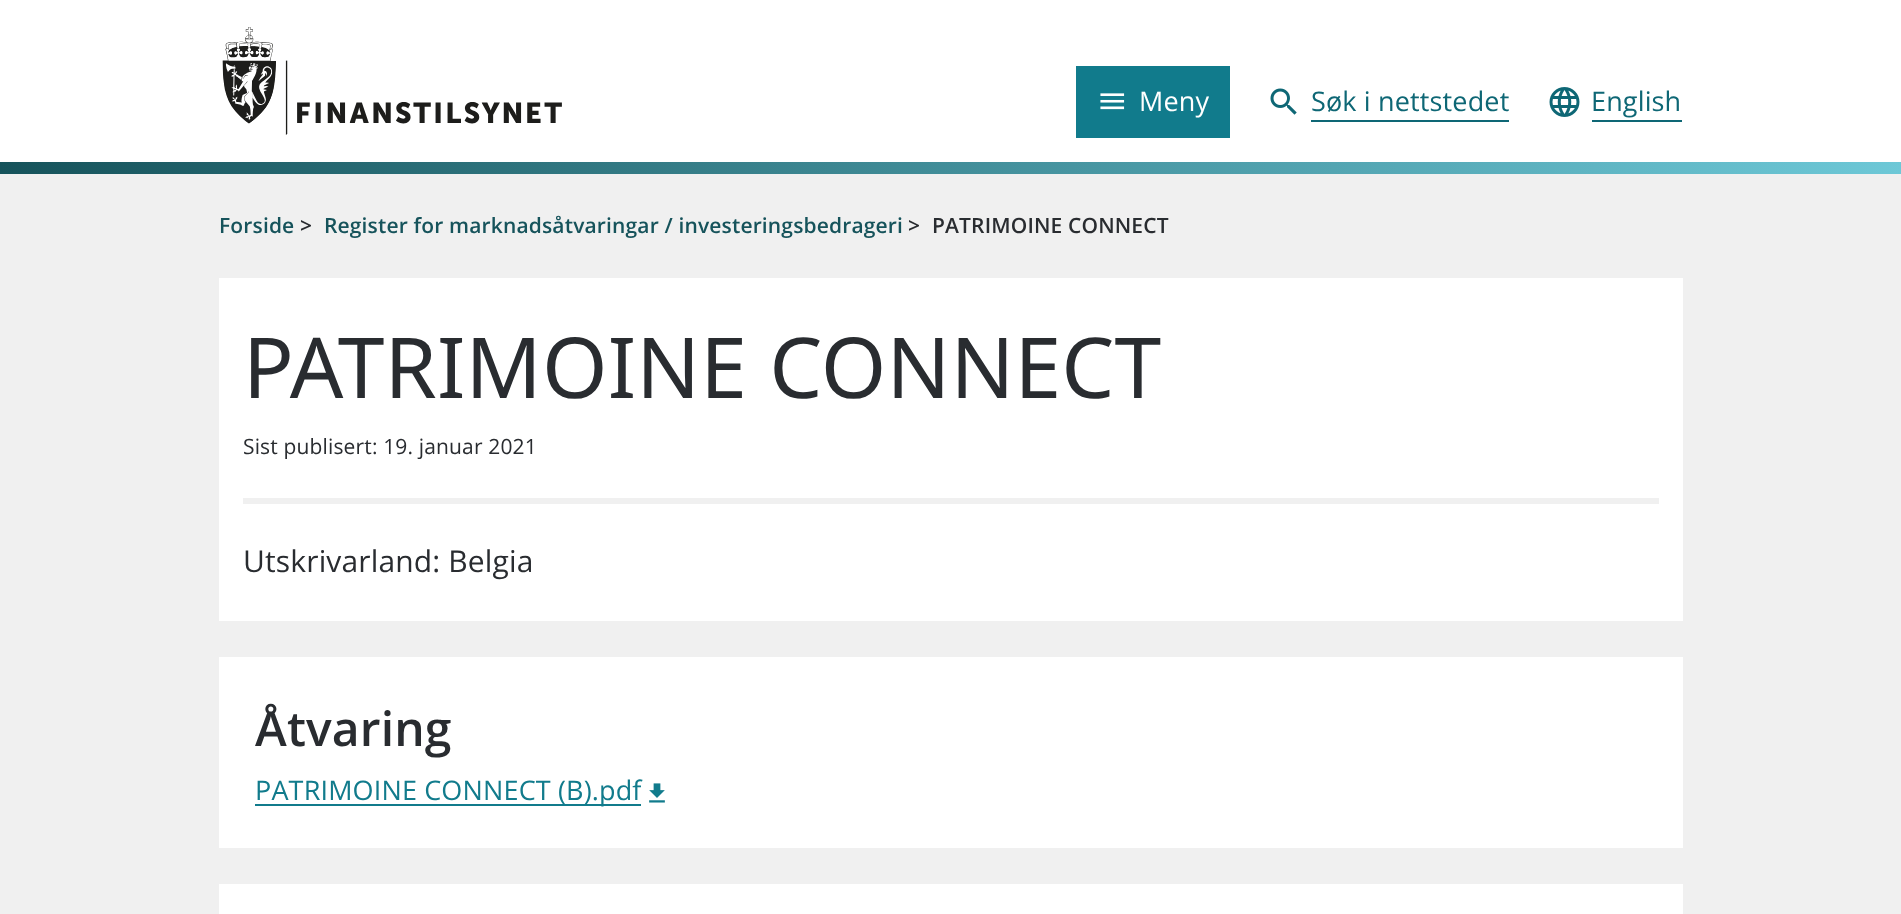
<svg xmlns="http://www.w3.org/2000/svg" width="1901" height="914">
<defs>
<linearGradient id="g1" gradientUnits="userSpaceOnUse" x1="0" y1="168" x2="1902" y2="168"><stop offset="0" stop-color="#16535b"/><stop offset="1" stop-color="#6dc8d7"/></linearGradient>
</defs>
<rect width="100%" height="100%" fill="#f0f0f0"/>
<rect width="1901" height="162" fill="#fff"/>
<image x="222" y="27" width="340" height="108" href="media/1.png"/>
<rect x="1076" y="66" width="154" height="72" fill="#117b8c"/>
<image x="1100" y="93" width="25" height="17" href="media/2.png"/>
<text x="1139" y="111" style="font-family:Open Sans;font-size:27px;letter-spacing:0.15px;fill:#fff">Meny</text>
<image x="1270" y="88" width="27" height="27" href="media/3.png"/>
<text x="1311" y="111" style="font-family:Open Sans;font-size:27px;letter-spacing:0.15px;fill:#0e6775">Søk i nettstedet</text>
<rect x="1311" y="120" width="198" height="2" fill="#0e6775"/>
<image x="1549" y="87" width="31" height="30" href="media/4.png"/>
<text x="1591" y="111" style="font-family:Open Sans;font-size:27px;letter-spacing:0.15px;fill:#0e6775">English</text>
<rect x="1592" y="120" width="90" height="2" fill="#0e6775"/>
<rect y="162" width="1901" height="12" fill="url(#g1)"/>
<text x="219" y="233" style="font-family:Open Sans;font-size:21px;font-weight:600;letter-spacing:0.15px;fill:#16535b">Forside</text>
<text x="300" y="233" style="font-family:Open Sans;font-size:21px;font-weight:600;letter-spacing:0.15px;fill:#292c30">&gt;</text>
<text x="324" y="233" style="font-family:Open Sans;font-size:21px;font-weight:600;letter-spacing:0.15px;fill:#16535b">Register for marknadsåtvaringar / investeringsbedrageri</text>
<text x="908" y="233" style="font-family:Open Sans;font-size:21px;font-weight:600;letter-spacing:0.15px;fill:#292c30">&gt;</text>
<text x="932" y="233" style="font-family:Open Sans;font-size:21px;font-weight:600;letter-spacing:0.15px;fill:#292c30">PATRIMOINE CONNECT</text>
<rect x="219" y="278" width="1464" height="343" fill="#fff"/>
<text x="243" y="398" style="font-family:Noto Sans;font-size:84px;letter-spacing:0.15px;fill:#292c30">PATRIMOINE CONNECT</text>
<text x="243" y="454" style="font-family:Open Sans;font-size:21px;letter-spacing:0.15px;fill:#292c30">Sist publisert: 19. januar 2021</text>
<rect x="243" y="498" width="1416" height="6" fill="#f0f0f0"/>
<text x="243" y="572" style="font-family:Open Sans;font-size:30px;letter-spacing:0.15px;fill:#292c30">Utskrivarland: Belgia</text>
<rect x="219" y="657" width="1464" height="191" fill="#fff"/>
<text x="255" y="746" style="font-family:Open Sans;font-size:48px;font-weight:600;letter-spacing:0.15px;fill:#292c30">Åtvaring</text>
<rect x="255" y="804" width="386" height="2" fill="#117b8c"/>
<text x="255" y="800" style="font-family:Open Sans;font-size:27px;letter-spacing:0.15px;fill:#117b8c">PATRIMOINE CONNECT (B).pdf</text>
<image x="649" y="783" width="16" height="20" href="media/5.png"/>
<rect x="219" y="884" width="1464" height="30" fill="#fff"/>
</svg>
